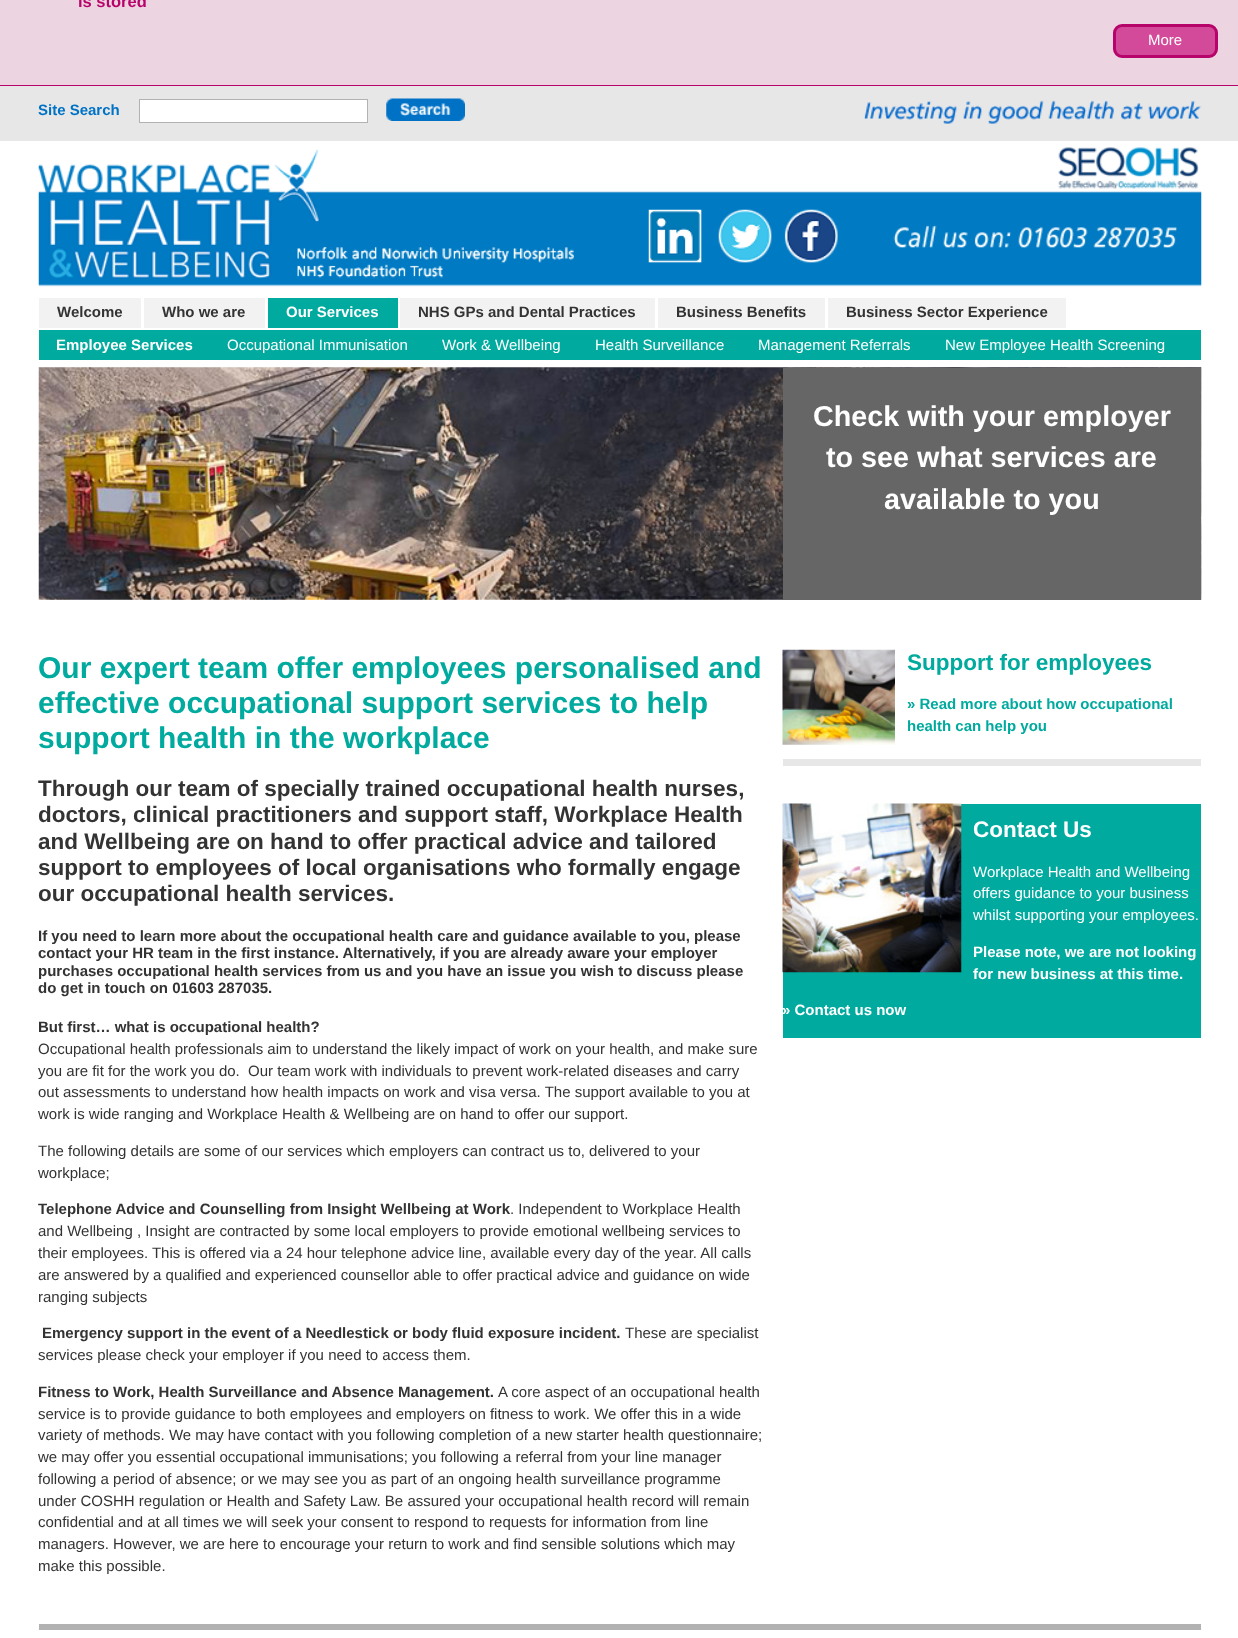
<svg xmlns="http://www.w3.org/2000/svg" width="1238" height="1638">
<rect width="100%" height="100%" fill="#fff"/>
<rect width="1238" height="85" fill="#edd4e1"/>
<rect y="85" width="1238" height="1" fill="#b7046a"/>
<text x="78" y="7" style="font-family:Liberation Sans;font-size:16.5px;font-weight:bold;fill:#b7046a">is stored</text>
<rect x="1114.5" y="25.5" width="102" height="31" rx="7.5" fill="#d34a9a" stroke="#b7046a" stroke-width="3"/>
<text x="1148" y="45" style="font-family:Liberation Sans;font-size:15px;fill:#fff">More</text>
<rect y="86" width="1238" height="55" fill="#e7e7e7"/>
<text x="38" y="115" style="font-family:Liberation Sans;font-size:15px;font-weight:bold;fill:#0072c6">Site Search</text>
<rect x="139.5" y="99.5" width="228" height="23" fill="#fff" stroke="#b2b2b2"/>
<image x="386" y="98" width="79" height="23" href="media/1.png"/>
<image x="863" y="100" width="339" height="24" href="media/2.png"/>
<image x="38" y="147" width="1164" height="140" href="media/3.png"/>
<rect x="39" y="330" width="1162" height="30" fill="#00aa9e"/>
<rect x="39" y="298" width="102" height="30" fill="#f2f2f2"/>
<text x="57" y="317" style="font-family:Liberation Sans;font-size:15px;font-weight:bold;fill:#333">Welcome</text>
<rect x="144" y="298" width="121" height="30" fill="#f2f2f2"/>
<text x="162" y="317" style="font-family:Liberation Sans;font-size:15px;font-weight:bold;fill:#333">Who we are</text>
<rect x="268" y="298" width="130" height="30" fill="#00aa9e"/>
<text x="286" y="317" style="font-family:Liberation Sans;font-size:15px;font-weight:bold;fill:#fff">Our Services</text>
<rect x="400" y="298" width="255" height="30" fill="#f2f2f2"/>
<text x="418" y="317" style="font-family:Liberation Sans;font-size:15px;font-weight:bold;fill:#333">NHS GPs and Dental Practices</text>
<rect x="658" y="298" width="167" height="30" fill="#f2f2f2"/>
<text x="676" y="317" style="font-family:Liberation Sans;font-size:15px;font-weight:bold;fill:#333">Business Benefits</text>
<rect x="828" y="298" width="238" height="30" fill="#f2f2f2"/>
<text x="846" y="317" style="font-family:Liberation Sans;font-size:15px;font-weight:bold;fill:#333">Business Sector Experience</text>
<text x="56" y="350" style="font-family:Liberation Sans;font-size:15px;font-weight:bold;fill:#fff">Employee Services</text>
<text x="227" y="350" style="font-family:Liberation Sans;font-size:15px;fill:#fff">Occupational Immunisation</text>
<text x="442" y="350" style="font-family:Liberation Sans;font-size:15px;fill:#fff">Work &amp; Wellbeing</text>
<text x="595" y="350" style="font-family:Liberation Sans;font-size:15px;fill:#fff">Health Surveillance</text>
<text x="758" y="350" style="font-family:Liberation Sans;font-size:15px;fill:#fff">Management Referrals</text>
<text x="945" y="350" style="font-family:Liberation Sans;font-size:15px;fill:#fff">New Employee Health Screening</text>
<image x="38" y="367" width="1164" height="233" href="media/4.png"/>
<rect x="783" y="368" width="418" height="232" fill="#666"/>
<text x="813" y="426" style="font-family:Liberation Sans;font-size:28.75px;font-weight:bold;fill:#fff">Check with your employer</text>
<text x="826" y="467" style="font-family:Liberation Sans;font-size:28.75px;font-weight:bold;fill:#fff">to see what services are</text>
<text x="884" y="509" style="font-family:Liberation Sans;font-size:28.75px;font-weight:bold;fill:#fff">available to you</text>
<text x="38" y="678" style="font-family:Liberation Sans;font-size:30px;font-weight:bold;fill:#00aa9e">Our expert team offer employees personalised and</text>
<text x="38" y="713" style="font-family:Liberation Sans;font-size:30px;font-weight:bold;fill:#00aa9e">effective occupational support services to help</text>
<text x="38" y="748" style="font-family:Liberation Sans;font-size:30px;font-weight:bold;fill:#00aa9e">support health in the workplace</text>
<text x="38" y="796" style="font-family:Liberation Sans;font-size:22.5px;font-weight:bold;fill:#333">Through our team of specially trained occupational health nurses,</text>
<text x="38" y="822" style="font-family:Liberation Sans;font-size:22.5px;font-weight:bold;fill:#333">doctors, clinical practitioners and support staff, Workplace Health</text>
<text x="38" y="849" style="font-family:Liberation Sans;font-size:22.5px;font-weight:bold;fill:#333">and Wellbeing are on hand to offer practical advice and tailored</text>
<text x="38" y="875" style="font-family:Liberation Sans;font-size:22.5px;font-weight:bold;fill:#333">support to employees of local organisations who formally engage</text>
<text x="38" y="901" style="font-family:Liberation Sans;font-size:22.5px;font-weight:bold;fill:#333">our occupational health services.</text>
<text x="38" y="941" style="font-family:Liberation Sans;font-size:15px;font-weight:bold;fill:#333">If you need to learn more about the occupational health care and guidance available to you, please</text>
<text x="38" y="958" style="font-family:Liberation Sans;font-size:15px;font-weight:bold;fill:#333">contact your HR team in the first instance. Alternatively, if you are already aware your employer</text>
<text x="38" y="976" style="font-family:Liberation Sans;font-size:15px;font-weight:bold;fill:#333">purchases occupational health services from us and you have an issue you wish to discuss please</text>
<text x="38" y="993" style="font-family:Liberation Sans;font-size:15px;font-weight:bold;fill:#333">do get in touch on 01603 287035.</text>
<text x="38" y="1032" style="font-family:Liberation Sans;font-size:15px;font-weight:bold;fill:#333">But first… what is occupational health?</text>
<text x="38" y="1054" style="font-family:Liberation Sans;font-size:15px;fill:#333">Occupational health professionals aim to understand the likely impact of work on your health, and make sure</text>
<text x="38" y="1076" style="font-family:Liberation Sans;font-size:15px;fill:#333" xml:space="preserve">you are fit for the work you do.  Our team work with individuals to prevent work-related diseases and carry</text>
<text x="38" y="1097" style="font-family:Liberation Sans;font-size:15px;fill:#333">out assessments to understand how health impacts on work and visa versa. The support available to you at</text>
<text x="38" y="1119" style="font-family:Liberation Sans;font-size:15px;fill:#333">work is wide ranging and Workplace Health &amp; Wellbeing are on hand to offer our support.</text>
<text x="38" y="1156" style="font-family:Liberation Sans;font-size:15px;fill:#333">The following details are some of our services which employers can contract us to, delivered to your</text>
<text x="38" y="1178" style="font-family:Liberation Sans;font-size:15px;fill:#333">workplace;</text>
<text x="38" y="1214" style="font-family:Liberation Sans;font-size:15px;font-weight:bold;fill:#333">Telephone Advice and Counselling from Insight Wellbeing at Work</text>
<text x="510" y="1214" style="font-family:Liberation Sans;font-size:15px;fill:#333">. Independent to Workplace Health</text>
<text x="38" y="1236" style="font-family:Liberation Sans;font-size:15px;fill:#333">and Wellbeing , Insight are contracted by some local employers to provide emotional wellbeing services to</text>
<text x="38" y="1258" style="font-family:Liberation Sans;font-size:15px;fill:#333">their employees. This is offered via a 24 hour telephone advice line, available every day of the year. All calls</text>
<text x="38" y="1280" style="font-family:Liberation Sans;font-size:15px;fill:#333">are answered by a qualified and experienced counsellor able to offer practical advice and guidance on wide</text>
<text x="38" y="1302" style="font-family:Liberation Sans;font-size:15px;fill:#333">ranging subjects</text>
<text x="42" y="1338" style="font-family:Liberation Sans;font-size:15px;font-weight:bold;fill:#333">Emergency support in the event of a Needlestick or body fluid exposure incident.</text>
<text x="625" y="1338" style="font-family:Liberation Sans;font-size:15px;fill:#333">These are specialist</text>
<text x="38" y="1360" style="font-family:Liberation Sans;font-size:15px;fill:#333">services please check your employer if you need to access them.</text>
<text x="38" y="1397" style="font-family:Liberation Sans;font-size:15px;font-weight:bold;fill:#333">Fitness to Work, Health Surveillance and Absence Management.</text>
<text x="498" y="1397" style="font-family:Liberation Sans;font-size:15px;fill:#333">A core aspect of an occupational health</text>
<text x="38" y="1419" style="font-family:Liberation Sans;font-size:15px;fill:#333">service is to provide guidance to both employees and employers on fitness to work. We offer this in a wide</text>
<text x="38" y="1440" style="font-family:Liberation Sans;font-size:15px;fill:#333">variety of methods. We may have contact with you following completion of a new starter health questionnaire;</text>
<text x="38" y="1462" style="font-family:Liberation Sans;font-size:15px;fill:#333">we may offer you essential occupational immunisations; you following a referral from your line manager</text>
<text x="38" y="1484" style="font-family:Liberation Sans;font-size:15px;fill:#333">following a period of absence; or we may see you as part of an ongoing health surveillance programme</text>
<text x="38" y="1506" style="font-family:Liberation Sans;font-size:15px;fill:#333">under COSHH regulation or Health and Safety Law. Be assured your occupational health record will remain</text>
<text x="38" y="1527" style="font-family:Liberation Sans;font-size:15px;fill:#333">confidential and at all times we will seek your consent to respond to requests for information from line</text>
<text x="38" y="1549" style="font-family:Liberation Sans;font-size:15px;fill:#333">managers. However, we are here to encourage your return to work and find sensible solutions which may</text>
<text x="38" y="1571" style="font-family:Liberation Sans;font-size:15px;fill:#333">make this possible.</text>
<rect x="783" y="759" width="418" height="7" fill="#e7e7e7"/>
<image x="782" y="649" width="113" height="96" href="media/5.png"/>
<text x="907" y="670" style="font-family:Liberation Sans;font-size:22.5px;font-weight:bold;fill:#00aa9e">Support for employees</text>
<text x="907" y="709" style="font-family:Liberation Sans;font-size:15px;font-weight:bold;fill:#00aa9e">» Read more about how occupational</text>
<text x="907" y="731" style="font-family:Liberation Sans;font-size:15px;font-weight:bold;fill:#00aa9e">health can help you</text>
<rect x="783" y="804" width="418" height="234" fill="#00aa9e"/>
<image x="782" y="803" width="180" height="170" href="media/6.png"/>
<text x="973" y="837" style="font-family:Liberation Sans;font-size:22.5px;font-weight:bold;fill:#fff">Contact Us</text>
<text x="973" y="877" style="font-family:Liberation Sans;font-size:15px;fill:#fff">Workplace Health and Wellbeing</text>
<text x="973" y="898" style="font-family:Liberation Sans;font-size:15px;fill:#fff">offers guidance to your business</text>
<text x="973" y="920" style="font-family:Liberation Sans;font-size:15px;fill:#fff">whilst supporting your employees.</text>
<text x="973" y="957" style="font-family:Liberation Sans;font-size:15px;font-weight:bold;fill:#fff">Please note, we are not looking</text>
<text x="973" y="979" style="font-family:Liberation Sans;font-size:15px;font-weight:bold;fill:#fff">for new business at this time.</text>
<text x="782" y="1015" style="font-family:Liberation Sans;font-size:15px;font-weight:bold;fill:#fff">» Contact us now</text>
<rect x="39" y="1624" width="1162" height="6" fill="#b2b2b2"/>
</svg>
